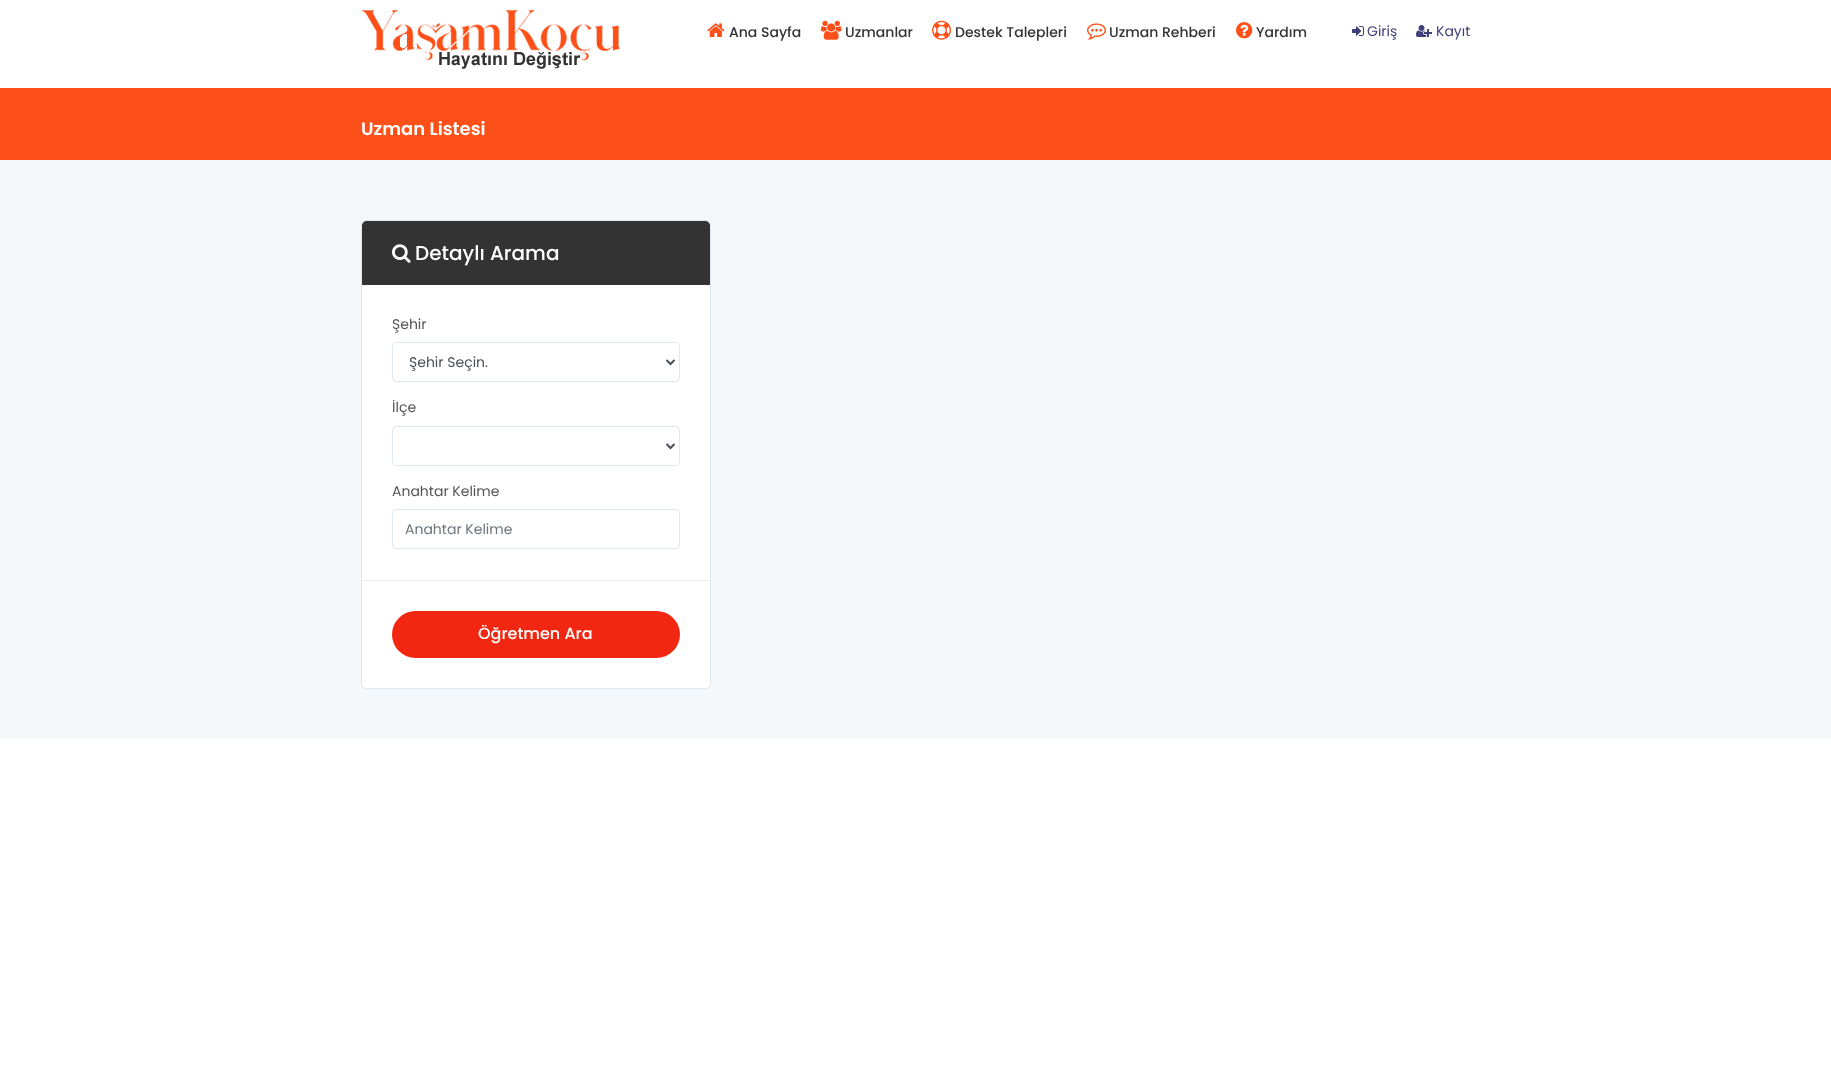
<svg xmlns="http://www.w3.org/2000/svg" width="1831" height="1071">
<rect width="100%" height="100%" fill="#fff"/>
<image x="361" y="10" width="260" height="59" href="media/1.png"/>
<image x="707" y="23" width="18" height="14" href="media/2.png"/>
<text x="729" y="37" style="font-family:Poppins;font-size:14px;font-weight:500;fill:#333">Ana Sayfa</text>
<image x="821" y="20" width="21" height="20" href="media/3.png"/>
<text x="845" y="37" style="font-family:Poppins;font-size:14px;font-weight:500;fill:#333">Uzmanlar</text>
<image x="932" y="20" width="19" height="20" href="media/4.png"/>
<text x="955" y="37" style="font-family:Poppins;font-size:14px;font-weight:500;fill:#333">Destek Talepleri</text>
<image x="1087" y="23" width="19" height="17" href="media/5.png"/>
<text x="1109" y="37" style="font-family:Poppins;font-size:14px;font-weight:500;fill:#333">Uzman Rehberi</text>
<image x="1236" y="22" width="17" height="17" href="media/6.png"/>
<text x="1256" y="37" style="font-family:Poppins;font-size:14px;font-weight:500;fill:#333">Yardım</text>
<image x="1352" y="26" width="12" height="10" href="media/7.png"/>
<text x="1367" y="36" style="font-family:Poppins;font-size:14px;fill:#3f4079">Giriş</text>
<image x="1416" y="25" width="16" height="12" href="media/8.png"/>
<text x="1436" y="36" style="font-family:Poppins;font-size:14px;fill:#3f4079">Kayıt</text>
<rect y="160" width="1831" height="579" fill="#f5f8fa"/>
<rect y="88" width="1831" height="72" fill="#fd4f18"/>
<text x="361" y="135" style="font-family:Poppins;font-size:18px;font-weight:600;fill:#fff">Uzman Listesi</text>
<rect x="361.5" y="220.5" width="349" height="468" rx="4.5" fill="#fff" stroke="#e1e8ed"/>
<path d="M367 221h338c3 0 5 2 5 5v59h-348v-59c0-3 2-5 5-5z" fill="#333"/>
<image x="392" y="244" width="19" height="19" href="media/9.png"/>
<text x="415" y="260" style="font-family:Poppins;font-size:20px;font-weight:500;fill:#fff">Detaylı Arama</text>
<text x="392" y="329" style="font-family:Poppins;font-size:14px;fill:#555">Şehir</text>
<rect x="392.5" y="342.5" width="287" height="39" rx="3.5" fill="none" stroke="#e1e8ed"/>
<path d="M666.5 360l4 4l4-4" fill="none" stroke="#495057" stroke-width="2"/>
<text x="409" y="367" style="font-family:Poppins;font-size:14px;fill:#495057">Şehir Seçin.</text>
<text x="392" y="412" style="font-family:Poppins;font-size:14px;fill:#555">İlçe</text>
<rect x="392.5" y="426.5" width="287" height="39" rx="3.5" fill="none" stroke="#e1e8ed"/>
<path d="M666.5 444l4 4l4-4" fill="none" stroke="#495057" stroke-width="2"/>
<text x="392" y="496" style="font-family:Poppins;font-size:14px;fill:#555">Anahtar Kelime</text>
<rect x="392.5" y="509.5" width="287" height="39" rx="3.5" fill="none" stroke="#e1e8ed"/>
<text x="405" y="534" style="font-family:Poppins;font-size:14px;fill:#6c757d">Anahtar Kelime</text>
<rect x="362" y="580" width="348" height="1" fill="#ededed"/>
<rect x="392" y="611" width="288" height="47" rx="23.5" fill="#f12711"/>
<text x="478" y="639" style="font-family:Poppins;font-size:16px;font-weight:500;fill:#fff">Öğretmen Ara</text>
</svg>
